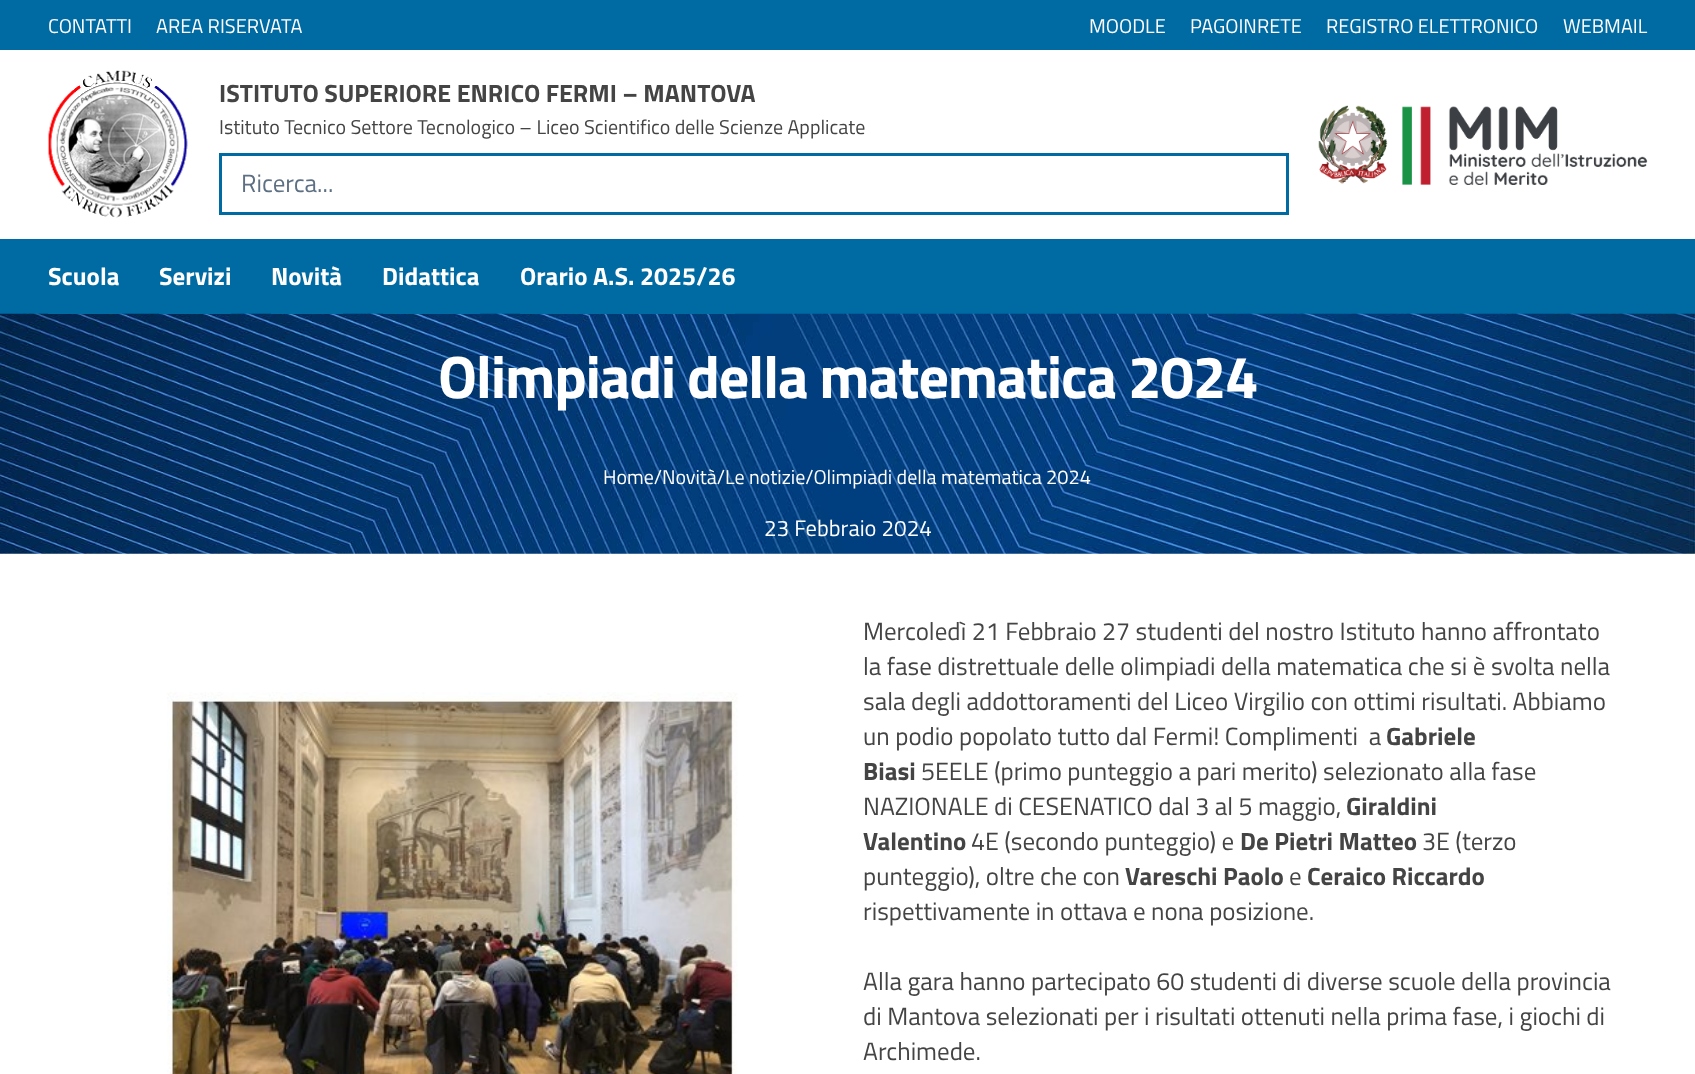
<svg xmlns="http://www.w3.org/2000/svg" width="1695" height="1074">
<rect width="100%" height="100%" fill="#fff"/>
<rect width="1695" height="50" fill="#006aa3"/>
<text x="48" y="33" style="font-family:Titillium Web;font-size:20px;fill:#fff">CONTATTI</text>
<text x="156" y="33" style="font-family:Titillium Web;font-size:20px;fill:#fff">AREA RISERVATA</text>
<text x="1089" y="33" style="font-family:Titillium Web;font-size:20px;fill:#fff">MOODLE</text>
<text x="1190" y="33" style="font-family:Titillium Web;font-size:20px;fill:#fff">PAGOINRETE</text>
<text x="1326" y="33" style="font-family:Titillium Web;font-size:20px;fill:#fff">REGISTRO ELETTRONICO</text>
<text x="1563" y="33" style="font-family:Titillium Web;font-size:20px;fill:#fff">WEBMAIL</text>
<image x="48" y="70" width="140" height="148" href="media/1.png"/>
<text x="219" y="102" style="font-family:Titillium Web;font-size:25px;font-weight:bold;fill:#444">ISTITUTO SUPERIORE ENRICO FERMI – MANTOVA</text>
<text x="219" y="134" style="font-family:Titillium Web;font-size:20px;fill:#444">Istituto Tecnico Settore Tecnologico – Liceo Scientifico delle Scienze Applicate</text>
<rect x="220.5" y="154.5" width="1067" height="59" fill="none" stroke="#006aa3" stroke-width="3"/>
<text x="241" y="192" style="font-family:Titillium Web;font-size:25px;fill:#5d7083">Ricerca...</text>
<image x="1318" y="105" width="330" height="80" href="media/2.png"/>
<rect y="239" width="1695" height="75" fill="#006aa3"/>
<image x="0" y="313" width="1695" height="241" href="media/3.png"/>
<rect x="48" y="313" width="71" height="1" fill="#006aa3"/>
<text x="48" y="285" style="font-family:Titillium Web;font-size:25px;font-weight:bold;fill:#fff">Scuola</text>
<rect x="159" y="313" width="72" height="1" fill="#006aa3"/>
<text x="159" y="285" style="font-family:Titillium Web;font-size:25px;font-weight:bold;fill:#fff">Servizi</text>
<rect x="271" y="313" width="72" height="1" fill="#006aa3"/>
<text x="271" y="285" style="font-family:Titillium Web;font-size:25px;font-weight:bold;fill:#fff">Novità</text>
<rect x="383" y="313" width="97" height="1" fill="#006aa3"/>
<text x="382" y="285" style="font-family:Titillium Web;font-size:25px;font-weight:bold;fill:#fff">Didattica</text>
<rect x="520" y="313" width="215" height="1" fill="#006aa3"/>
<text x="520" y="285" style="font-family:Titillium Web;font-size:25px;font-weight:bold;fill:#fff">Orario A.S. 2025/26</text>
<text x="438" y="398" style="font-family:Titillium Web;font-size:60px;font-weight:bold;letter-spacing:-1.25px;fill:#fff">Olimpiadi della matematica 2024</text>
<text x="603" y="484" style="font-family:Titillium Web;font-size:20px;fill:#fff">Home/Novità/Le notizie/Olimpiadi della matematica 2024</text>
<text x="764" y="536" style="font-family:Titillium Web;font-size:22.5px;fill:#fff">23 Febbraio 2024</text>
<image x="167" y="692" width="571" height="382" href="media/4.png"/>
<text x="863" y="640" style="font-family:Titillium Web;font-size:25px;fill:#444">Mercoledì 21 Febbraio 27 studenti del nostro Istituto hanno affrontato</text>
<text x="863" y="675" style="font-family:Titillium Web;font-size:25px;fill:#444">la fase distrettuale delle olimpiadi della matematica che si è svolta nella</text>
<text x="863" y="710" style="font-family:Titillium Web;font-size:25px;fill:#444">sala degli addottoramenti del Liceo Virgilio con ottimi risultati. Abbiamo</text>
<text x="863" y="745" style="font-family:Titillium Web;font-size:25px;fill:#444" xml:space="preserve">un podio popolato tutto dal Fermi! Complimenti  a</text>
<text x="1386" y="745" style="font-family:Titillium Web;font-size:25px;font-weight:bold;fill:#444">Gabriele</text>
<text x="863" y="780" style="font-family:Titillium Web;font-size:25px;font-weight:bold;fill:#444">Biasi</text>
<text x="921" y="780" style="font-family:Titillium Web;font-size:25px;fill:#444">5EELE (primo punteggio a pari merito) selezionato alla fase</text>
<text x="863" y="815" style="font-family:Titillium Web;font-size:25px;fill:#444">NAZIONALE di CESENATICO dal 3 al 5 maggio,</text>
<text x="1346" y="815" style="font-family:Titillium Web;font-size:25px;font-weight:bold;fill:#444">Giraldini</text>
<text x="863" y="850" style="font-family:Titillium Web;font-size:25px;font-weight:bold;fill:#444">Valentino</text>
<text x="971" y="850" style="font-family:Titillium Web;font-size:25px;fill:#444">4E (secondo punteggio) e</text>
<text x="1240" y="850" style="font-family:Titillium Web;font-size:25px;font-weight:bold;fill:#444">De Pietri Matteo</text>
<text x="1422" y="850" style="font-family:Titillium Web;font-size:25px;fill:#444">3E (terzo</text>
<text x="863" y="885" style="font-family:Titillium Web;font-size:25px;fill:#444">punteggio), oltre che con</text>
<text x="1125" y="885" style="font-family:Titillium Web;font-size:25px;font-weight:bold;fill:#444">Vareschi Paolo</text>
<text x="1289" y="885" style="font-family:Titillium Web;font-size:25px;fill:#444">e</text>
<text x="1307" y="885" style="font-family:Titillium Web;font-size:25px;font-weight:bold;fill:#444">Ceraico Riccardo</text>
<text x="863" y="920" style="font-family:Titillium Web;font-size:25px;fill:#444">rispettivamente in ottava e nona posizione.</text>
<text x="863" y="990" style="font-family:Titillium Web;font-size:25px;fill:#444">Alla gara hanno partecipato 60 studenti di diverse scuole della provincia</text>
<text x="863" y="1025" style="font-family:Titillium Web;font-size:25px;fill:#444">di Mantova selezionati per i risultati ottenuti nella prima fase, i giochi di</text>
<text x="863" y="1060" style="font-family:Titillium Web;font-size:25px;fill:#444">Archimede.</text>
</svg>
